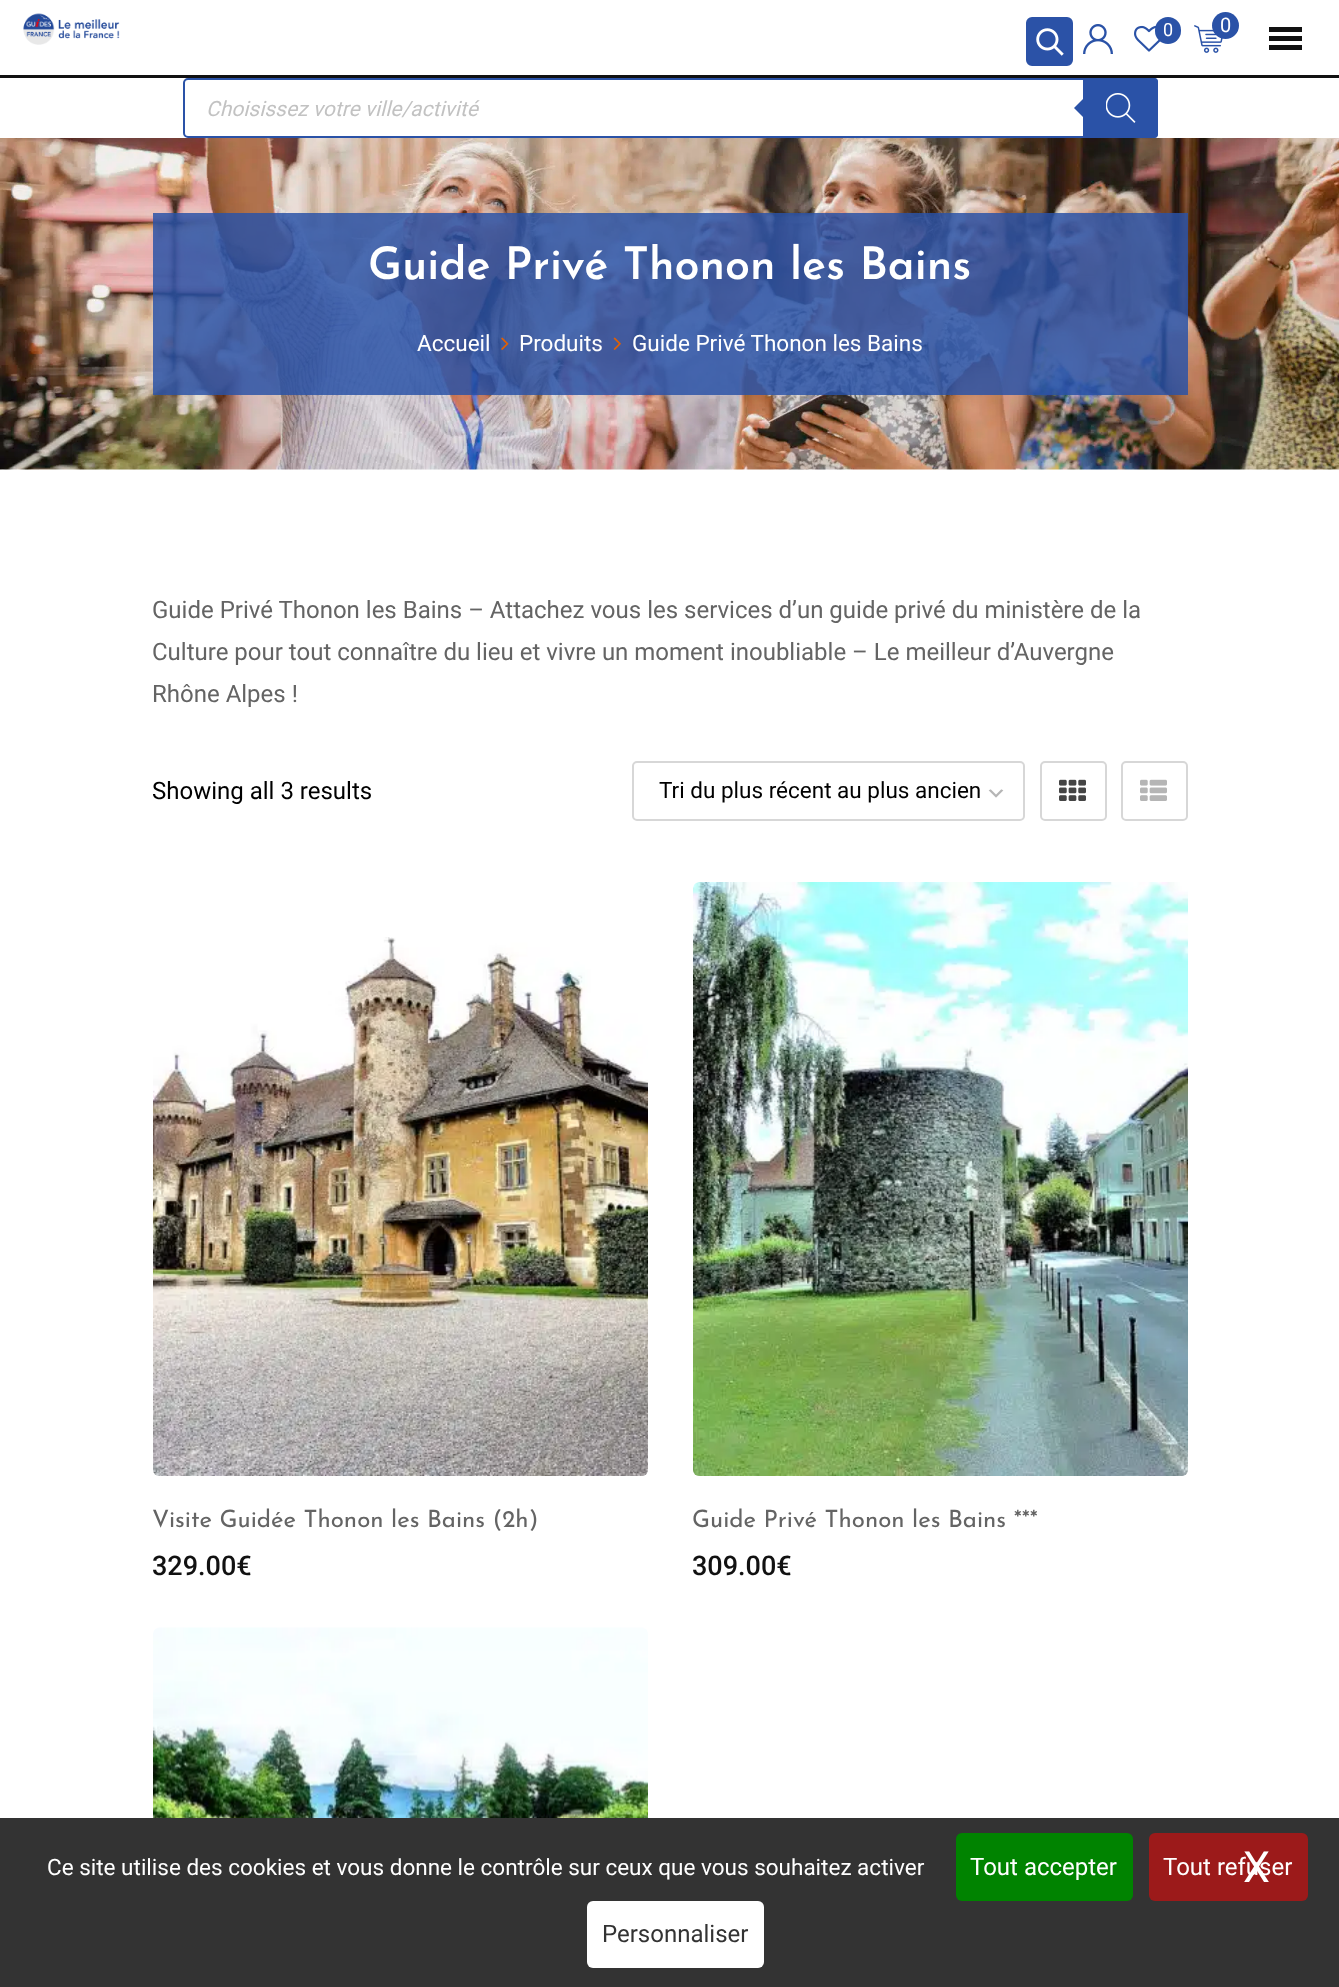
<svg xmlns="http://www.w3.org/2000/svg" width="1339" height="1987">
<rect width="100%" height="100%" fill="#fff"/>
<rect y="75" width="1339" height="3" fill="#111"/>
<image x="23" y="13" width="97" height="32" href="media/1.png"/>
<rect x="1027" y="18" width="45" height="47" rx="5" fill="#2b52a7" stroke="#2b52a7" stroke-width="2"/>
<image x="1036" y="28" width="28" height="28" href="media/2.png"/>
<image x="1083" y="24" width="30" height="30" href="media/3.png"/>
<image x="1134" y="25" width="27" height="27" href="media/4.png"/>
<rect x="1155" y="17" width="26" height="27" rx="13" fill="#2a52a7"/>
<text x="1163" y="36" style="font-family:Roboto;font-size:18px;fill:#fff">0</text>
<image x="1194" y="25" width="29" height="28" href="media/5.png"/>
<circle cx="1225.5" cy="25.5" r="13.5" fill="#2a52a7"/>
<text x="1220" y="32" style="font-family:Roboto;font-size:20px;fill:#fff">0</text>
<rect x="1269" y="27" width="33" height="5" fill="#111"/>
<rect x="1269" y="36" width="33" height="5" fill="#111"/>
<rect x="1269" y="45" width="33" height="5" fill="#111"/>
<rect x="184" y="79" width="973" height="58" rx="4" fill="none" stroke="#2a52a7" stroke-width="2"/>
<text x="206" y="116" style="font-family:Roboto;font-size:21px;font-style:italic;fill:#c2c2c2">Choisissez votre ville/activité</text>
<path d="M1083 78h72c1.5 0 3 1.5 3 3v54c0 1.5-1.5 3-3 3h-72z" fill="#2a52a7"/>
<path d="M1086 96v24l-12-12z" fill="#2a52a7"/>
<image x="1106" y="93" width="30" height="30" href="media/6.png"/>
<image x="0" y="138" width="1339" height="332" href="media/7.png"/>
<rect x="153" y="213" width="1035" height="110" fill="#2a52a7d6"/>
<text x="368" y="279" style="font-family:Josefin Sans;font-size:45px;font-weight:600;fill:#fff">Guide Privé Thonon les Bains</text>
<rect x="153" y="323" width="1035" height="72" fill="#2a52a7d6"/>
<text x="417" y="351" style="font-family:Roboto;font-size:22.5px;fill:#fff">Accueil</text>
<image x="501" y="337" width="8" height="13" href="media/8.png"/>
<text x="519" y="351" style="font-family:Roboto;font-size:22.5px;fill:#fff">Produits</text>
<image x="613" y="337" width="8" height="13" href="media/9.png"/>
<text x="632" y="351" style="font-family:Roboto;font-size:22.5px;fill:#fff">Guide Privé Thonon les Bains</text>
<text x="152" y="618" style="font-family:Roboto;font-size:24px;fill:#646464">Guide Privé Thonon les Bains – Attachez vous les services d’un guide privé du ministère de la</text>
<text x="152" y="660" style="font-family:Roboto;font-size:24px;fill:#646464">Culture pour tout connaître du lieu et vivre un moment inoubliable – Le meilleur d’Auvergne</text>
<text x="152" y="702" style="font-family:Roboto;font-size:24px;fill:#646464">Rhône Alpes !</text>
<text x="152" y="799" style="font-family:Roboto;font-size:24px;fill:#000">Showing all 3 results</text>
<image x="988" y="789" width="16" height="9" href="media/10.png"/>
<rect x="633" y="762" width="391" height="58" rx="4" fill="none" stroke="#d7d7d7" stroke-width="2"/>
<text x="659" y="798" style="font-family:Roboto;font-size:22.5px;fill:#000">Tri du plus récent au plus ancien</text>
<rect x="1041" y="762" width="65" height="58" rx="4" fill="none" stroke="#d7d7d7" stroke-width="2"/>
<image x="1059" y="779" width="27" height="22" href="media/11.png"/>
<rect x="1122" y="762" width="65" height="58" rx="4" fill="none" stroke="#d7d7d7" stroke-width="2"/>
<image x="1140" y="779" width="27" height="22" href="media/12.png"/>
<image x="153" y="937" width="495" height="539" href="media/13.png"/>
<text x="152" y="1527" style="font-family:Josefin Sans;font-size:24px;fill:#646464">Visite Guidée Thonon les Bains (2h)</text>
<text x="152" y="1575" style="font-family:Roboto;font-size:27px;font-weight:500;fill:#111">329.00€</text>
<image x="693" y="882" width="495" height="594" href="media/14.png"/>
<text x="692" y="1527" style="font-family:Josefin Sans;font-size:24px;fill:#646464">Guide Privé Thonon les Bains ***</text>
<text x="692" y="1575" style="font-family:Roboto;font-size:27px;font-weight:500;fill:#111">309.00€</text>
<image x="153" y="1627" width="495" height="191" href="media/15.png"/>
<rect y="1818" width="1339" height="169" fill="#333"/>
<rect x="1149" y="1833" width="159" height="68" rx="6" fill="#9c1a1a"/>
<text x="1163" y="1875" style="font-family:Roboto;font-size:24px;fill:#fff">Tout refuser</text>
<text x="1243" y="1882" style="font-family:Roboto;font-size:43px;fill:#fff">X</text>
<text x="47" y="1875" style="font-family:Roboto;font-size:22.5px;fill:#fff">Ce site utilise des cookies et vous donne le contrôle sur ceux que vous souhaitez activer</text>
<rect x="956" y="1833" width="177" height="68" rx="6" fill="#008300"/>
<text x="970" y="1875" style="font-family:Roboto;font-size:24px;fill:#fff">Tout accepter</text>
<rect x="587" y="1901" width="177" height="67" rx="6" fill="#fff"/>
<text x="602" y="1942" style="font-family:Roboto;font-size:24px;fill:#333">Personnaliser</text>
</svg>
